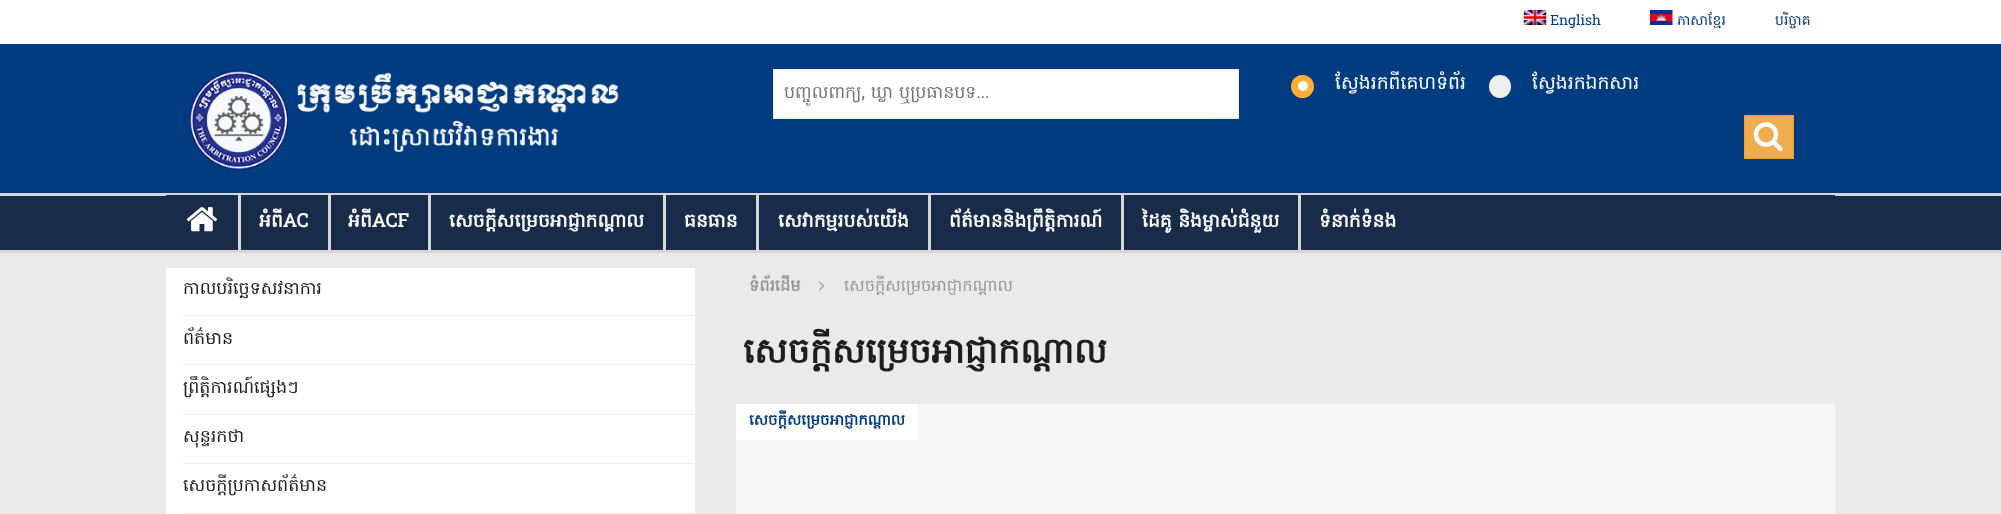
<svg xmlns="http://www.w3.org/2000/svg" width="2001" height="514">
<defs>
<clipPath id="clip1"><rect x="736" y="268" width="1099" height="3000"/></clipPath>
</defs>
<rect width="100%" height="100%" fill="#eaeaea"/>
<rect width="2001" height="44" fill="#fff"/>
<image x="1523" y="10" width="24" height="15" href="media/1.png"/>
<text x="1550" y="25" style="font-family:Hanuman;font-size:14px;fill:#013c80">English</text>
<image x="1650" y="10" width="23" height="15" href="media/2.png"/>
<text x="1677" y="25" style="font-family:Hanuman;font-size:14px;fill:#013c80">ភាសាខ្មែរ</text>
<text x="1775" y="25" style="font-family:Hanuman;font-size:14px;fill:#013c80">បរិច្ចាគ</text>
<rect y="44" width="2001" height="149" fill="#013c80"/>
<image x="189" y="70" width="430" height="100" href="media/3.png"/>
<circle cx="1302.5" cy="86.5" r="11.5" fill="#ffad33"/>
<circle cx="1303" cy="86" r="5" fill="#fff"/>
<text x="1335" y="89" style="font-family:Hanuman;font-size:18.75px;fill:#fff">ស្វែងរកពីគេហទំព័រ</text>
<rect x="1489" y="75" width="22" height="23" rx="11" fill="#eee"/>
<text x="1532" y="89" style="font-family:Hanuman;font-size:18.75px;fill:#fff">ស្វែងរកឯកសារ</text>
<rect x="773.5" y="69.5" width="465" height="49" fill="#fff" stroke="#ebebeb"/>
<text x="784" y="98" style="font-family:Hanuman;font-size:17.5px;fill:#757575">បញ្ចូលពាក្យ, ឃ្លា ឬប្រធានបទ...</text>
<rect x="1744.5" y="115.5" width="49" height="43" fill="#f0ad4e" stroke="#eea236"/>
<image x="1753" y="122" width="30" height="30" href="media/4.png"/>
<rect y="196" width="2001" height="54" fill="#182b49"/>
<rect y="193" width="2001" height="3" fill="#d6d6d6"/>
<rect y="250" width="2001" height="3" fill="#d6d6d6"/>
<rect x="166" y="195" width="1669" height="1" fill="#182b49"/>
<image x="186" y="207" width="32" height="25" href="media/5.png"/>
<rect x="238" y="195" width="3" height="55" fill="#d6d6d6"/>
<text x="259" y="227" style="font-family:Hanuman;font-size:18.75px;font-weight:bold;fill:#fff">អំពីAC</text>
<rect x="328" y="195" width="3" height="55" fill="#d6d6d6"/>
<text x="348" y="227" style="font-family:Hanuman;font-size:18.75px;font-weight:bold;fill:#fff">អំពីACF</text>
<rect x="428" y="195" width="3" height="55" fill="#d6d6d6"/>
<text x="449" y="227" style="font-family:Hanuman;font-size:18.75px;font-weight:bold;fill:#fff">សេចក្ដីសម្រេចអាជ្ញាកណ្តាល</text>
<rect x="663" y="195" width="3" height="55" fill="#d6d6d6"/>
<text x="684" y="227" style="font-family:Hanuman;font-size:18.75px;font-weight:bold;fill:#fff">ធនធាន</text>
<rect x="756" y="195" width="3" height="55" fill="#d6d6d6"/>
<text x="778" y="227" style="font-family:Hanuman;font-size:18.75px;font-weight:bold;fill:#fff">សេវាកម្មរបស់យើង</text>
<rect x="928" y="195" width="3" height="55" fill="#d6d6d6"/>
<text x="949" y="227" style="font-family:Hanuman;font-size:18.75px;font-weight:bold;fill:#fff">ព័ត៌មាននិងព្រឹត្តិការណ៍</text>
<rect x="1121" y="195" width="3" height="55" fill="#d6d6d6"/>
<text x="1142" y="227" style="font-family:Hanuman;font-size:18.75px;font-weight:bold;fill:#fff">ដៃគូ និងម្ចាស់ជំនួយ</text>
<rect x="1298" y="195" width="3" height="55" fill="#d6d6d6"/>
<text x="1319" y="227" style="font-family:Hanuman;font-size:18.75px;font-weight:bold;fill:#fff">ទំនាក់ទំនង</text>
<rect x="166" y="268" width="529" height="246" fill="#fff"/>
<rect x="183" y="315" width="512" height="1" fill="#eee"/>
<text x="183" y="294" style="font-family:Hanuman;font-size:17.5px;fill:#1f1e1e">កាលបរិច្ឆេទសវនាការ</text>
<rect x="183" y="364" width="512" height="1" fill="#eee"/>
<text x="183" y="344" style="font-family:Hanuman;font-size:17.5px;fill:#1f1e1e">ព័ត៌មាន</text>
<rect x="183" y="414" width="512" height="1" fill="#eee"/>
<text x="183" y="393" style="font-family:Hanuman;font-size:17.5px;fill:#1f1e1e">ព្រឹត្តិការណ៍ផ្សេងៗ</text>
<rect x="183" y="463" width="512" height="1" fill="#eee"/>
<text x="183" y="442" style="font-family:Hanuman;font-size:17.5px;fill:#1f1e1e">សុន្ទរកថា</text>
<rect x="183" y="513" width="512" height="1" fill="#eee"/>
<text x="183" y="491" style="font-family:Hanuman;font-size:17.5px;fill:#1f1e1e">សេចក្តីប្រកាសព័ត៌មាន</text>
<g clip-path="url(#clip1)">
<path d="M736 268h1099" fill="none" stroke="#f0f0f0" stroke-width="1.2" stroke-dasharray="1.25 1.25"/>
</g>
<path d="M736 307h1099" fill="none" stroke="#f0f0f0" stroke-width="1.2" stroke-dasharray="1.25 1.25"/>
<text x="749" y="291" style="font-family:Hanuman;font-size:16.25px;font-weight:bold;fill:#979797">ទំព័រដើម</text>
<image x="819" y="281" width="5" height="10" href="media/6.png"/>
<text x="844" y="291" style="font-family:Hanuman;font-size:16.25px;fill:#979797">សេចក្ដីសម្រេចអាជ្ញាកណ្ដាល</text>
<text x="743" y="363" style="font-family:Hanuman;font-size:35px;font-weight:bold;fill:#1f1e1e">សេចក្ដីសម្រេចអាជ្ញាកណ្ដាល</text>
<rect x="736" y="404" width="1099" height="110" fill="#f7f7f7"/>
<rect x="736" y="404" width="182" height="36" fill="#fff"/>
<text x="749" y="425" style="font-family:Hanuman;font-size:15px;font-weight:bold;fill:#013c80">សេចក្ដីសម្រេចអាជ្ញាកណ្ដាល</text>
</svg>
